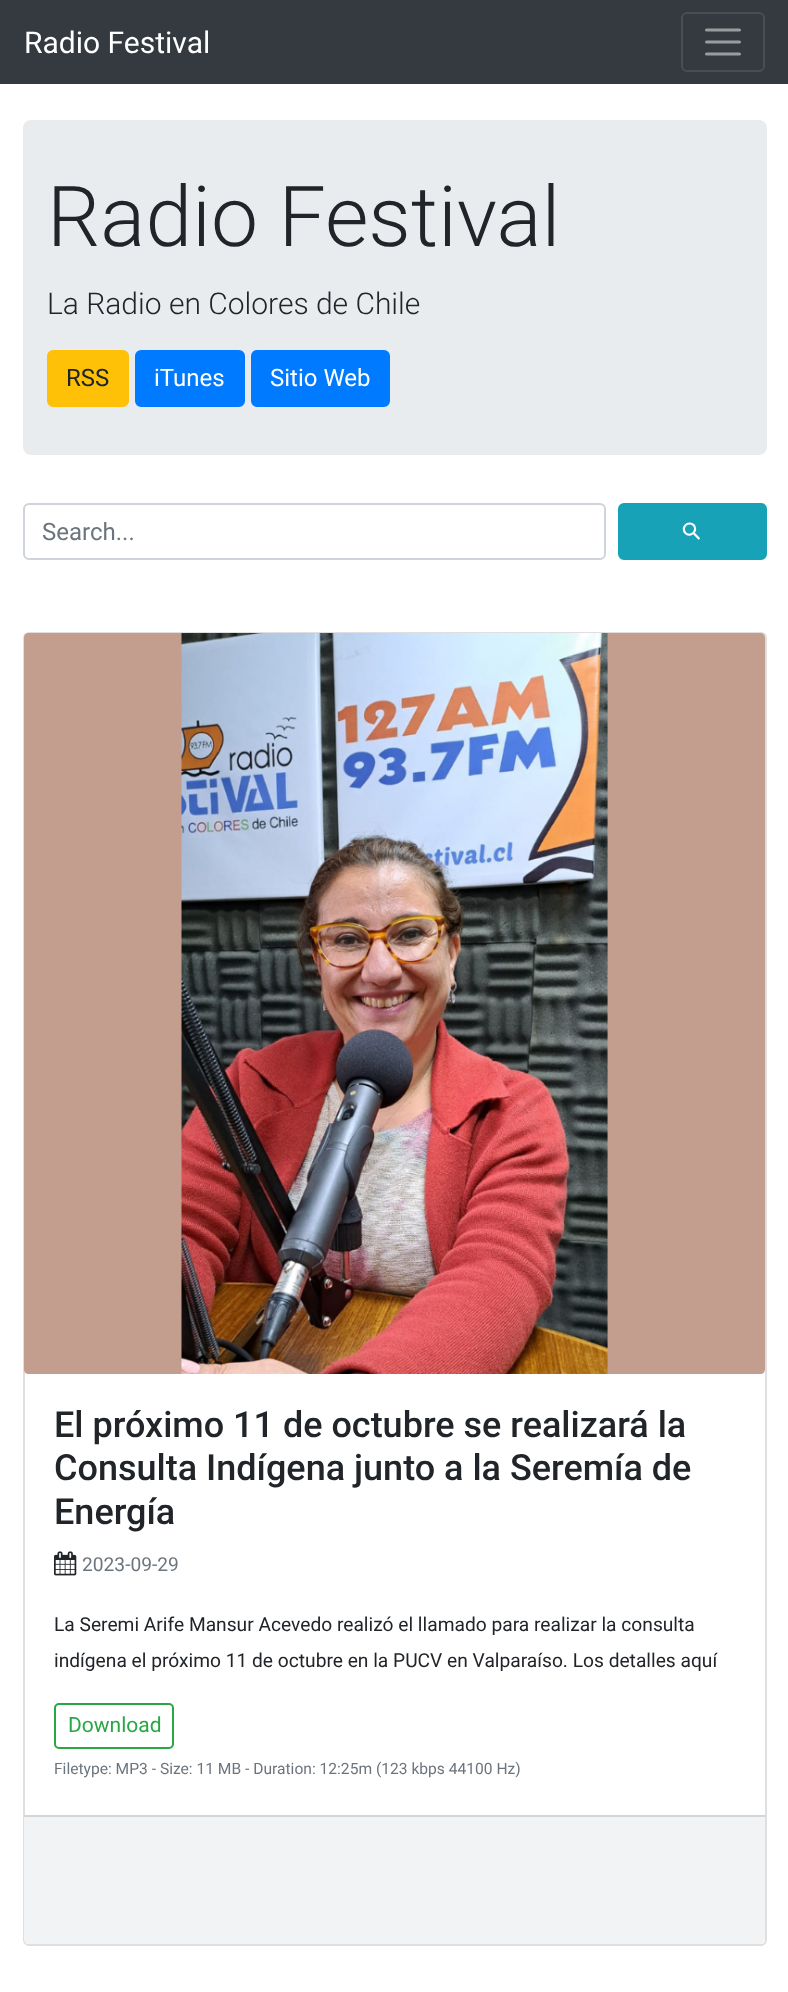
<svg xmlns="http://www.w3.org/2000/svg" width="788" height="1992">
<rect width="100%" height="100%" fill="#fff"/>
<rect width="788" height="84" fill="#343a40"/>
<text x="24" y="53" style="font-family:Roboto;font-size:30px;fill:#fff">Radio Festival</text>
<rect x="682" y="13" width="82" height="58" rx="5" fill="none" stroke="#484e53" stroke-width="2"/>
<path d="M706.5 30h33m-33 12h33m-33 12h33" fill="none" stroke="#9a9da0" stroke-width="3" stroke-linecap="round"/>
<rect x="23" y="120" width="744" height="335" rx="8" fill="#e9ecef"/>
<text x="47" y="246" style="font-family:Roboto;font-size:84px;font-weight:300;fill:#212529">Radio Festival</text>
<text x="47" y="314" style="font-family:Roboto;font-size:30px;font-weight:300;fill:#212529">La Radio en Colores de Chile</text>
<rect x="48" y="351" width="80" height="55" rx="5" fill="#ffc107" stroke="#ffc107" stroke-width="2"/>
<text x="66" y="386" style="font-family:Roboto;font-size:24px;fill:#212529">RSS</text>
<rect x="136" y="351" width="108" height="55" rx="5" fill="#007bff" stroke="#007bff" stroke-width="2"/>
<text x="154" y="386" style="font-family:Roboto;font-size:24px;fill:#fff">iTunes</text>
<rect x="252" y="351" width="137" height="55" rx="5" fill="#007bff" stroke="#007bff" stroke-width="2"/>
<text x="270" y="386" style="font-family:Roboto;font-size:24px;fill:#fff">Sitio Web</text>
<rect x="24" y="504" width="581" height="55" rx="5" fill="none" stroke="#ced4da" stroke-width="2"/>
<text x="42" y="540" style="font-family:Roboto;font-size:24px;fill:#6c757d">Search...</text>
<rect x="619" y="504" width="147" height="55" rx="5" fill="#17a2b8" stroke="#17a2b8" stroke-width="2"/>
<text x="691" y="543" transform="rotate(-45 691 543)" style="font-family:DejaVu Sans;font-size:24px;fill:#fff">⚲</text>
<rect x="24" y="633" width="742" height="1312" rx="5" fill="none" stroke="#dfdfdf" stroke-width="2"/>
<image x="24" y="633" width="741" height="741" href="media/1.png"/>
<text x="54" y="1437" style="font-family:Roboto;font-size:36px;font-weight:500;fill:#212529">El próximo 11 de octubre se realizará la</text>
<text x="54" y="1480" style="font-family:Roboto;font-size:36px;font-weight:500;fill:#212529">Consulta Indígena junto a la Seremía de</text>
<text x="54" y="1524" style="font-family:Roboto;font-size:36px;font-weight:500;fill:#212529">Energía</text>
<image x="54" y="1551" width="23" height="25" href="media/2.png"/>
<text x="82" y="1571" style="font-family:Roboto;font-size:19.2px;fill:#6c757d">2023-09-29</text>
<text x="54" y="1631" style="font-family:Roboto;font-size:19.2px;fill:#212529">La Seremi Arife Mansur Acevedo realizó el llamado para realizar la consulta</text>
<text x="54" y="1667" style="font-family:Roboto;font-size:19.2px;fill:#212529">indígena el próximo 11 de octubre en la PUCV en Valparaíso. Los detalles aquí</text>
<rect x="55" y="1704" width="118" height="44" rx="4" fill="none" stroke="#28a745" stroke-width="2"/>
<text x="68" y="1732" style="font-family:Roboto;font-size:21px;fill:#28a745">Download</text>
<text x="54" y="1774" style="font-family:Roboto;font-size:15.6px;fill:#6c757d">Filetype: MP3 - Size: 11 MB - Duration: 12:25m (123 kbps 44100 Hz)</text>
<path d="M24 1815h741v124c0 3-2 5-5 5h-731c-3 0-5-2-5-5z" fill="#f1f3f4"/>
<rect x="24" y="1815" width="741" height="2" fill="#d3d5d6"/>
</svg>
